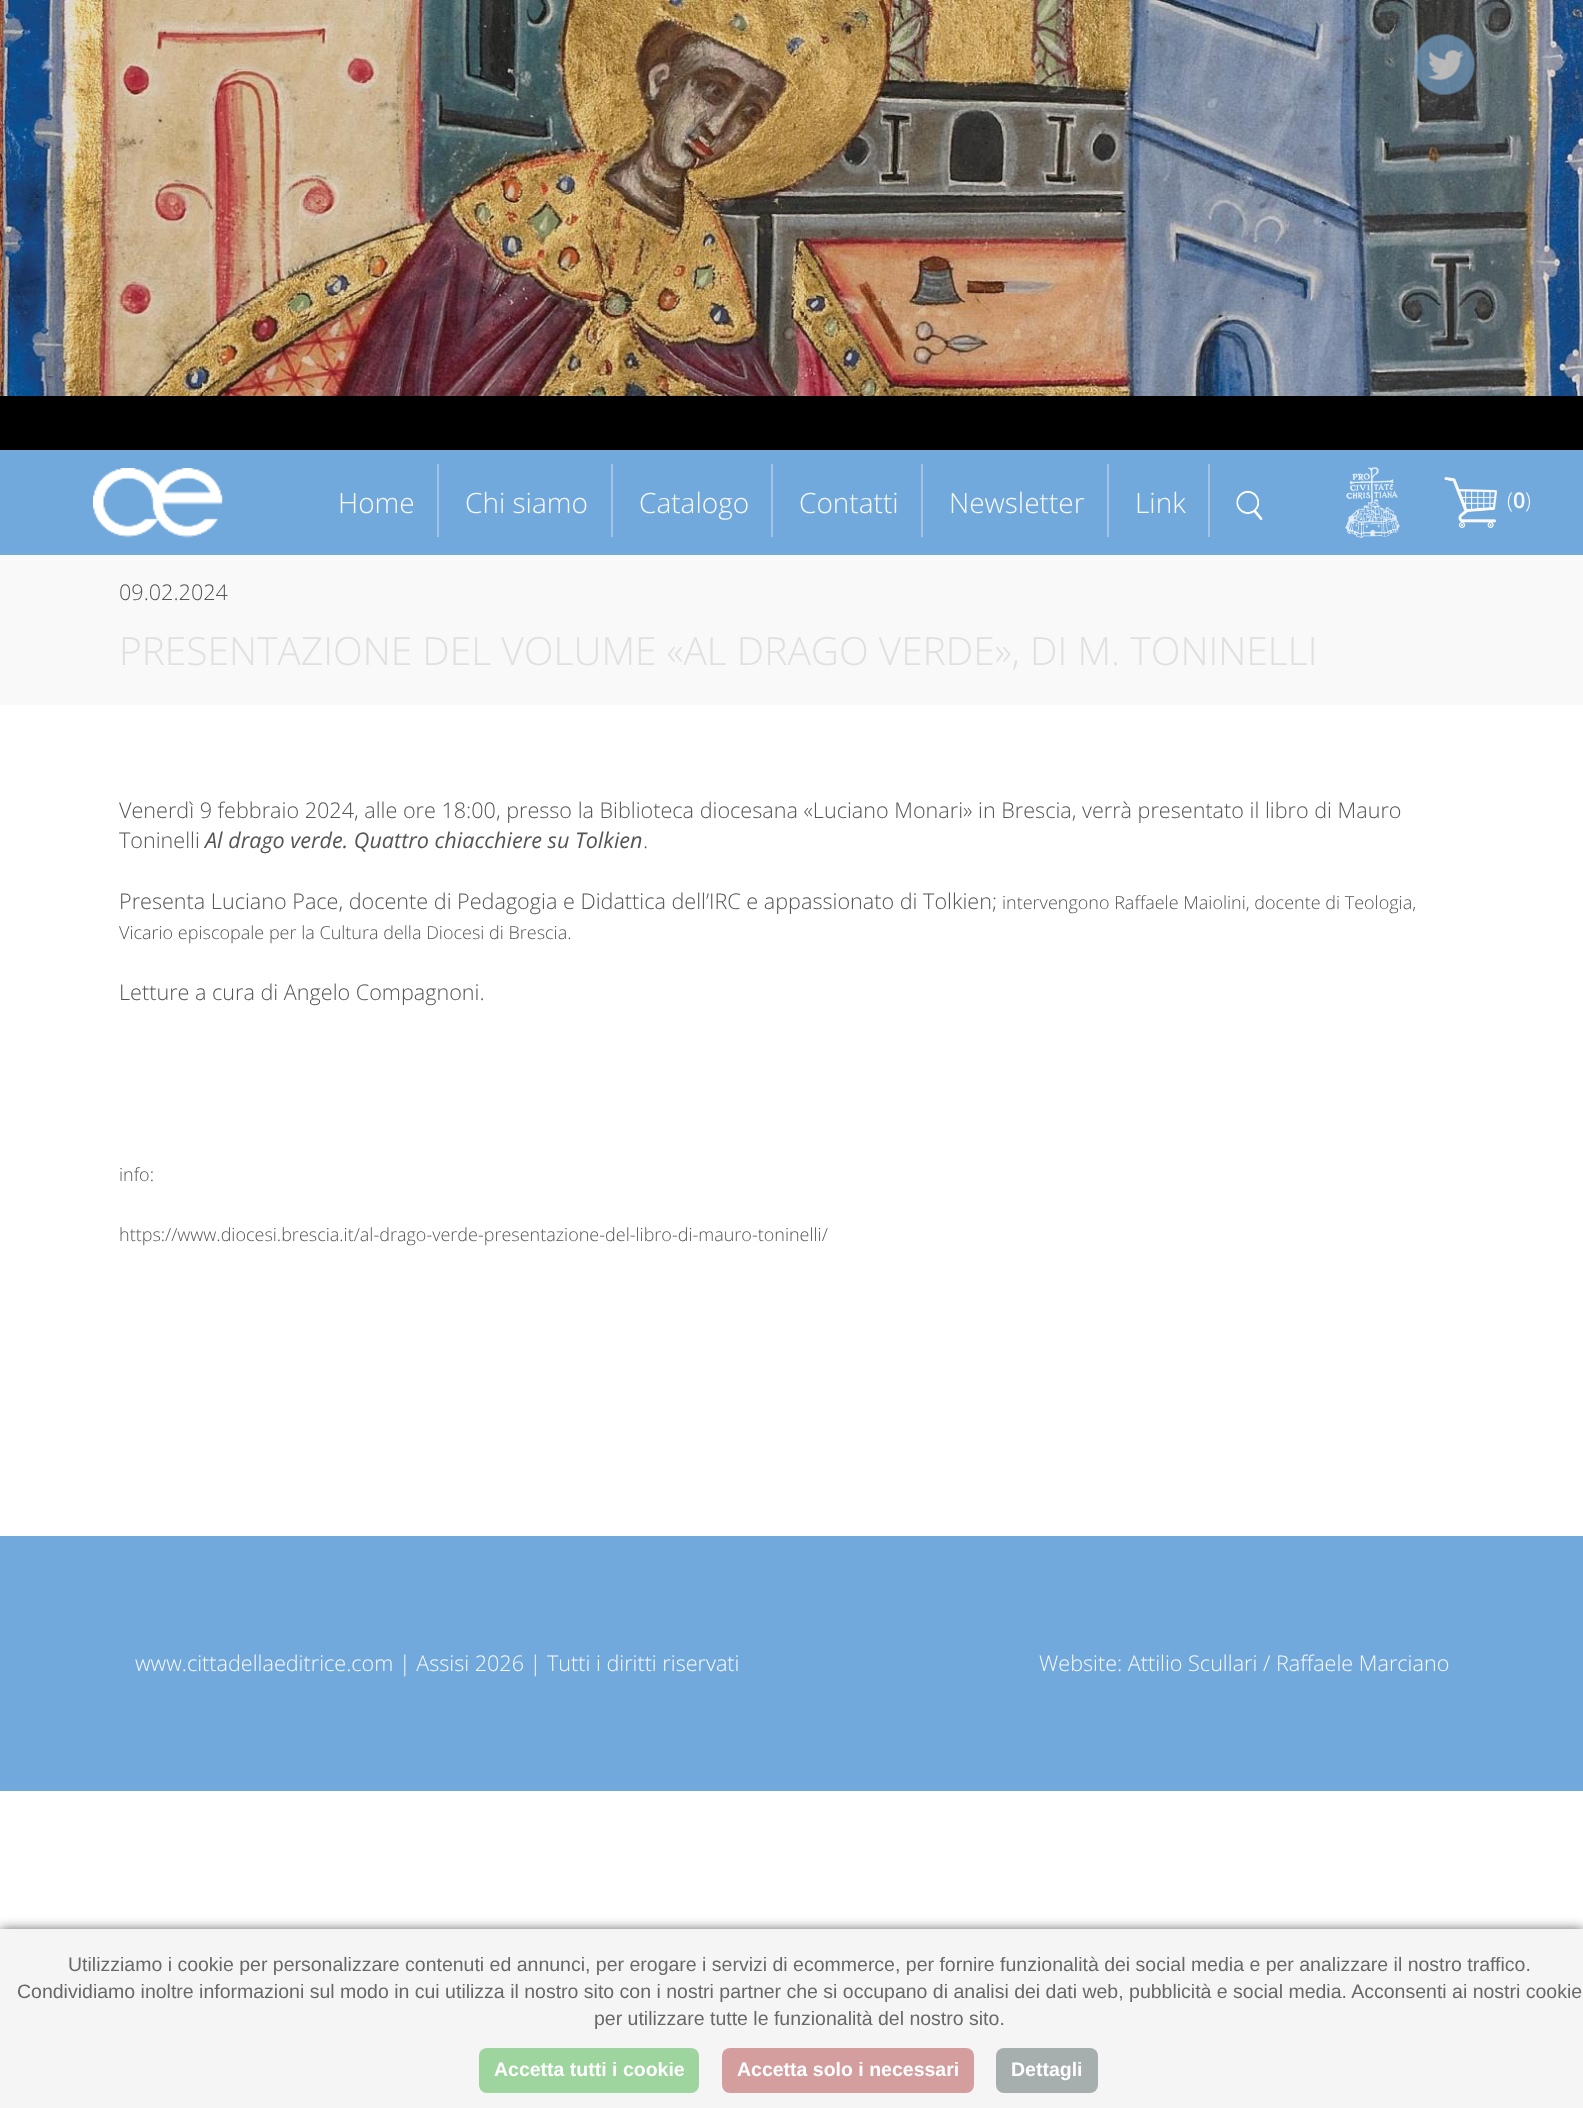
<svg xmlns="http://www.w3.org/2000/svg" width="1583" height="2108">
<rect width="100%" height="100%" fill="#fff"/>
<rect y="396" width="1583" height="54" fill="#000"/>
<image x="0" y="0" width="1583" height="396" href="media/1.png"/>
<rect y="450" width="1583" height="105" fill="#71a9dc"/>
<image x="93" y="468" width="130" height="70" href="media/2.png"/>
<text x="338" y="513" style="font-family:Open Sans;font-size:28px;font-weight:300;fill:#f8f8f8">Home</text>
<rect x="437" y="464" width="2" height="73" fill="#a3c4e4"/>
<text x="465" y="513" style="font-family:Open Sans;font-size:28px;font-weight:300;fill:#f8f8f8">Chi siamo</text>
<rect x="611" y="464" width="2" height="73" fill="#a3c4e4"/>
<text x="639" y="513" style="font-family:Open Sans;font-size:28px;font-weight:300;fill:#f8f8f8">Catalogo</text>
<rect x="771" y="464" width="2" height="73" fill="#a3c4e4"/>
<text x="799" y="513" style="font-family:Open Sans;font-size:28px;font-weight:300;fill:#f8f8f8">Contatti</text>
<rect x="921" y="464" width="2" height="73" fill="#a3c4e4"/>
<text x="949" y="513" style="font-family:Open Sans;font-size:28px;font-weight:300;fill:#f8f8f8">Newsletter</text>
<rect x="1107" y="464" width="2" height="73" fill="#a3c4e4"/>
<text x="1135" y="513" style="font-family:Open Sans;font-size:28px;font-weight:300;fill:#f8f8f8">Link</text>
<rect x="1208" y="464" width="2" height="73" fill="#a3c4e4"/>
<image x="1236" y="490" width="27" height="31" href="media/3.png"/>
<image x="1345" y="467" width="55" height="71" href="media/4.png"/>
<image x="1414" y="34" width="61" height="61" href="media/5.png"/>
<image x="1444" y="477" width="53" height="51" href="media/6.png"/>
<text x="1507" y="508" style="font-family:Open Sans;font-size:21.6px;font-weight:300;fill:#f8f8f8">(</text>
<text x="1513" y="508" style="font-family:Open Sans;font-size:21.6px;font-weight:600;fill:#f8f8f8">0</text>
<text x="1525" y="508" style="font-family:Open Sans;font-size:21.6px;font-weight:300;fill:#f8f8f8">)</text>
<rect y="555" width="1583" height="150" fill="#f9f9f9"/>
<text x="119" y="600" style="font-family:Open Sans;font-size:21.6px;font-weight:300;fill:#555">09.02.2024</text>
<text x="119" y="665" style="font-family:Open Sans;font-size:38.9px;font-weight:300;fill:#e0e0e0">PRESENTAZIONE DEL VOLUME «AL DRAGO VERDE», DI M. TONINELLI</text>
<text x="119" y="818" style="font-family:Open Sans;font-size:21.6px;font-weight:300;fill:#555">Venerdì 9 febbraio 2024, alle ore 18:00, presso la Biblioteca diocesana «Luciano Monari» in Brescia, verrà presentato il libro di Mauro</text>
<text x="119" y="848" style="font-family:Open Sans;font-size:21.6px;font-weight:300;fill:#555">Toninelli</text>
<text x="205" y="848" style="font-family:Open Sans;font-size:21.6px;font-style:italic;fill:#555">Al drago verde. Quattro chiacchiere su Tolkien</text>
<text x="643" y="848" style="font-family:Open Sans;font-size:21.6px;font-weight:300;fill:#555">.</text>
<text x="119" y="909" style="font-family:Open Sans;font-size:21.6px;font-weight:300;fill:#555">Presenta Luciano Pace, docente di Pedagogia e Didattica dell’IRC e appassionato di Tolkien;</text>
<text x="1002" y="909" style="font-family:Open Sans;font-size:18px;font-weight:300;fill:#555">intervengono Raffaele Maiolini, docente di Teologia,</text>
<text x="119" y="939" style="font-family:Open Sans;font-size:18px;font-weight:300;fill:#555">Vicario episcopale per la Cultura della Diocesi di Brescia.</text>
<text x="119" y="1000" style="font-family:Open Sans;font-size:21.6px;font-weight:300;fill:#555">Letture a cura di Angelo Compagnoni.</text>
<text x="119" y="1181" style="font-family:Open Sans;font-size:18px;font-weight:300;fill:#555">info:</text>
<text x="119" y="1241" style="font-family:Open Sans;font-size:18px;font-weight:300;fill:#555">https://www.diocesi.brescia.it/al-drago-verde-presentazione-del-libro-di-mauro-toninelli/</text>
<rect y="1536" width="1583" height="255" fill="#71a9dc"/>
<text x="135" y="1671" style="font-family:Open Sans;font-size:21.6px;font-weight:300;fill:#f8f8f8">www.cittadellaeditrice.com | Assisi 2026 | Tutti i diritti riservati</text>
<text x="1039" y="1671" style="font-family:Open Sans;font-size:21.6px;font-weight:300;fill:#f8f8f8">Website: Attilio Scullari / Raffaele Marciano</text>
<rect y="1929" width="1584" height="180" fill="#686868" filter="blur(6px)"/>
<rect y="1929" width="1583" height="179" fill="#f5f5f5"/>
<text x="68" y="1971" style="font-family:Liberation Sans;font-size:19.5px;fill:#686868">Utilizziamo i cookie per personalizzare contenuti ed annunci, per erogare i servizi di ecommerce, per fornire funzionalità dei social media e per analizzare il nostro traffico.</text>
<text x="17" y="1998" style="font-family:Liberation Sans;font-size:19.5px;fill:#686868">Condividiamo inoltre informazioni sul modo in cui utilizza il nostro sito con i nostri partner che si occupano di analisi dei dati web, pubblicità e social media. Acconsenti ai nostri cookie</text>
<text x="594" y="2025" style="font-family:Liberation Sans;font-size:19.5px;fill:#686868">per utilizzare tutte le funzionalità del nostro sito.</text>
<rect x="479" y="2048" width="220" height="45" rx="8" fill="#9ed49e"/>
<text x="494" y="2076" style="font-family:Liberation Sans;font-size:19.5px;font-weight:bold;fill:#fff">Accetta tutti i cookie</text>
<rect x="722" y="2048" width="252" height="45" rx="8" fill="#d49e9e"/>
<text x="737" y="2076" style="font-family:Liberation Sans;font-size:19.5px;font-weight:bold;fill:#fff">Accetta solo i necessari</text>
<rect x="996" y="2048" width="102" height="45" rx="8" fill="#a6aeae"/>
<text x="1011" y="2076" style="font-family:Liberation Sans;font-size:19.5px;font-weight:bold;fill:#fff">Dettagli</text>
</svg>
